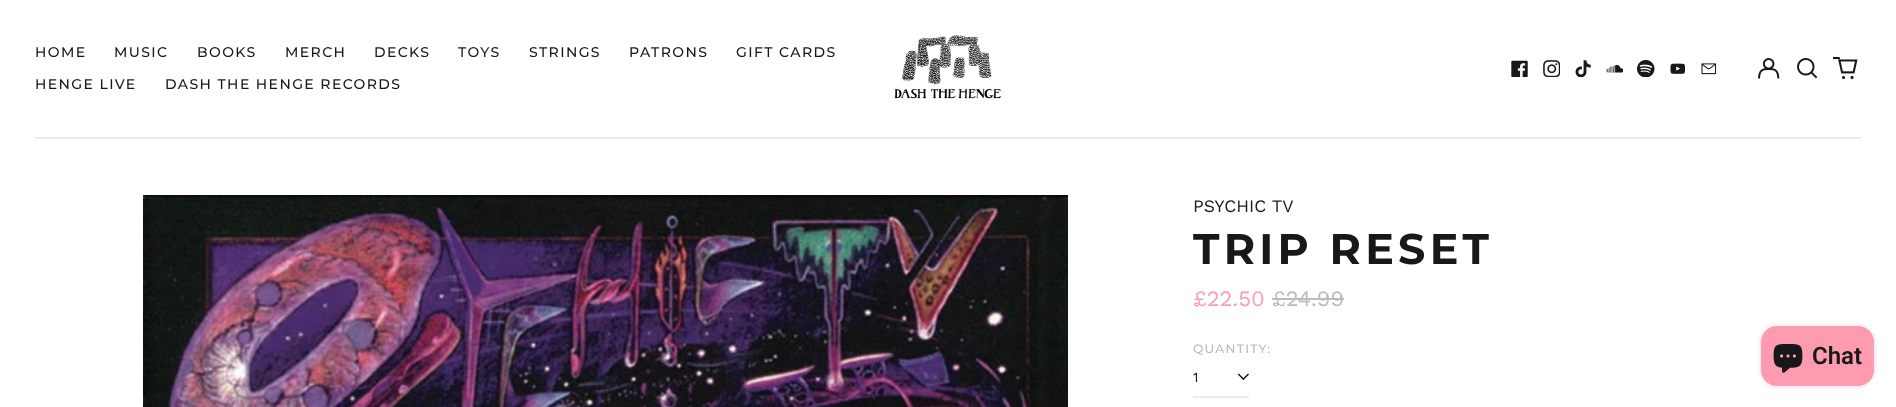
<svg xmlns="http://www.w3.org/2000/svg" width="1896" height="407">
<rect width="100%" height="100%" fill="#fff"/>
<rect x="35" y="137" width="1826" height="2" fill="#ebebeb"/>
<text x="35" y="57" style="font-family:Montserrat;font-size:14px;font-weight:500;letter-spacing:1.4px;fill:#161819">HOME</text>
<text x="114" y="57" style="font-family:Montserrat;font-size:14px;font-weight:500;letter-spacing:1.4px;fill:#161819">MUSIC</text>
<text x="197" y="57" style="font-family:Montserrat;font-size:14px;font-weight:500;letter-spacing:1.4px;fill:#161819">BOOKS</text>
<text x="285" y="57" style="font-family:Montserrat;font-size:14px;font-weight:500;letter-spacing:1.4px;fill:#161819">MERCH</text>
<text x="374" y="57" style="font-family:Montserrat;font-size:14px;font-weight:500;letter-spacing:1.4px;fill:#161819">DECKS</text>
<text x="458" y="57" style="font-family:Montserrat;font-size:14px;font-weight:500;letter-spacing:1.4px;fill:#161819">TOYS</text>
<text x="529" y="57" style="font-family:Montserrat;font-size:14px;font-weight:500;letter-spacing:1.4px;fill:#161819">STRINGS</text>
<text x="629" y="57" style="font-family:Montserrat;font-size:14px;font-weight:500;letter-spacing:1.4px;fill:#161819">PATRONS</text>
<text x="736" y="57" style="font-family:Montserrat;font-size:14px;font-weight:500;letter-spacing:1.4px;fill:#161819">GIFT CARDS</text>
<text x="35" y="89" style="font-family:Montserrat;font-size:14px;font-weight:500;letter-spacing:1.4px;fill:#161819">HENGE LIVE</text>
<text x="165" y="89" style="font-family:Montserrat;font-size:14px;font-weight:500;letter-spacing:1.4px;fill:#161819">DASH THE HENGE RECORDS</text>
<image x="894" y="35" width="107" height="64" href="media/1.png"/>
<image x="1511" y="60" width="17" height="17" href="media/2.png"/>
<image x="1543" y="60" width="17" height="17" href="media/3.png"/>
<image x="1575" y="60" width="16" height="17" href="media/4.png"/>
<image x="1606" y="64" width="17" height="9" href="media/5.png"/>
<image x="1637" y="60" width="18" height="17" href="media/6.png"/>
<image x="1670" y="63" width="16" height="11" href="media/7.png"/>
<image x="1701" y="63" width="16" height="12" href="media/8.png"/>
<image x="1758" y="58" width="22" height="21" href="media/9.png"/>
<image x="1797" y="58" width="21" height="21" href="media/10.png"/>
<image x="1833" y="57" width="25" height="23" href="media/11.png"/>
<image x="143" y="195" width="925" height="212" href="media/12.png"/>
<text x="1193" y="212" style="font-family:Work Sans;font-size:17.5px;fill:#161819">PSYCHIC TV</text>
<text x="1193" y="264" style="font-family:Montserrat;font-size:42.75px;font-weight:bold;letter-spacing:4.25px;fill:#161819">TRIP RESET</text>
<text x="1193" y="306" style="font-family:Work Sans;font-size:22px;fill:#ff9baf">£22.50</text>
<text x="1272" y="306" style="font-family:Work Sans;font-size:22px;fill:#bbb">£24.99</text>
<rect x="1272" y="298" width="72" height="2" fill="#bbb"/>
<text x="1193" y="353" style="font-family:Montserrat;font-size:12.25px;font-weight:500;letter-spacing:1.25px;fill:#bbb">QUANTITY:</text>
<image x="1237" y="373" width="12" height="7" href="media/13.png"/>
<rect x="1193" y="396" width="56" height="2" fill="#ebebeb"/>
<text x="1193" y="382" style="font-family:Work Sans;font-size:14px;fill:#161819">1</text>
<rect x="1761" y="326" width="113" height="60" rx="16" fill="#00000026" filter="blur(2.5px)"/>
<rect x="1761" y="326" width="113" height="60" rx="16" fill="#ff9baf"/>
<image x="1773" y="344" width="30" height="29" href="media/14.png"/>
<text x="1812" y="364" style="font-family:Roboto;font-size:24px;font-weight:600;fill:#161819">Chat</text>
</svg>
